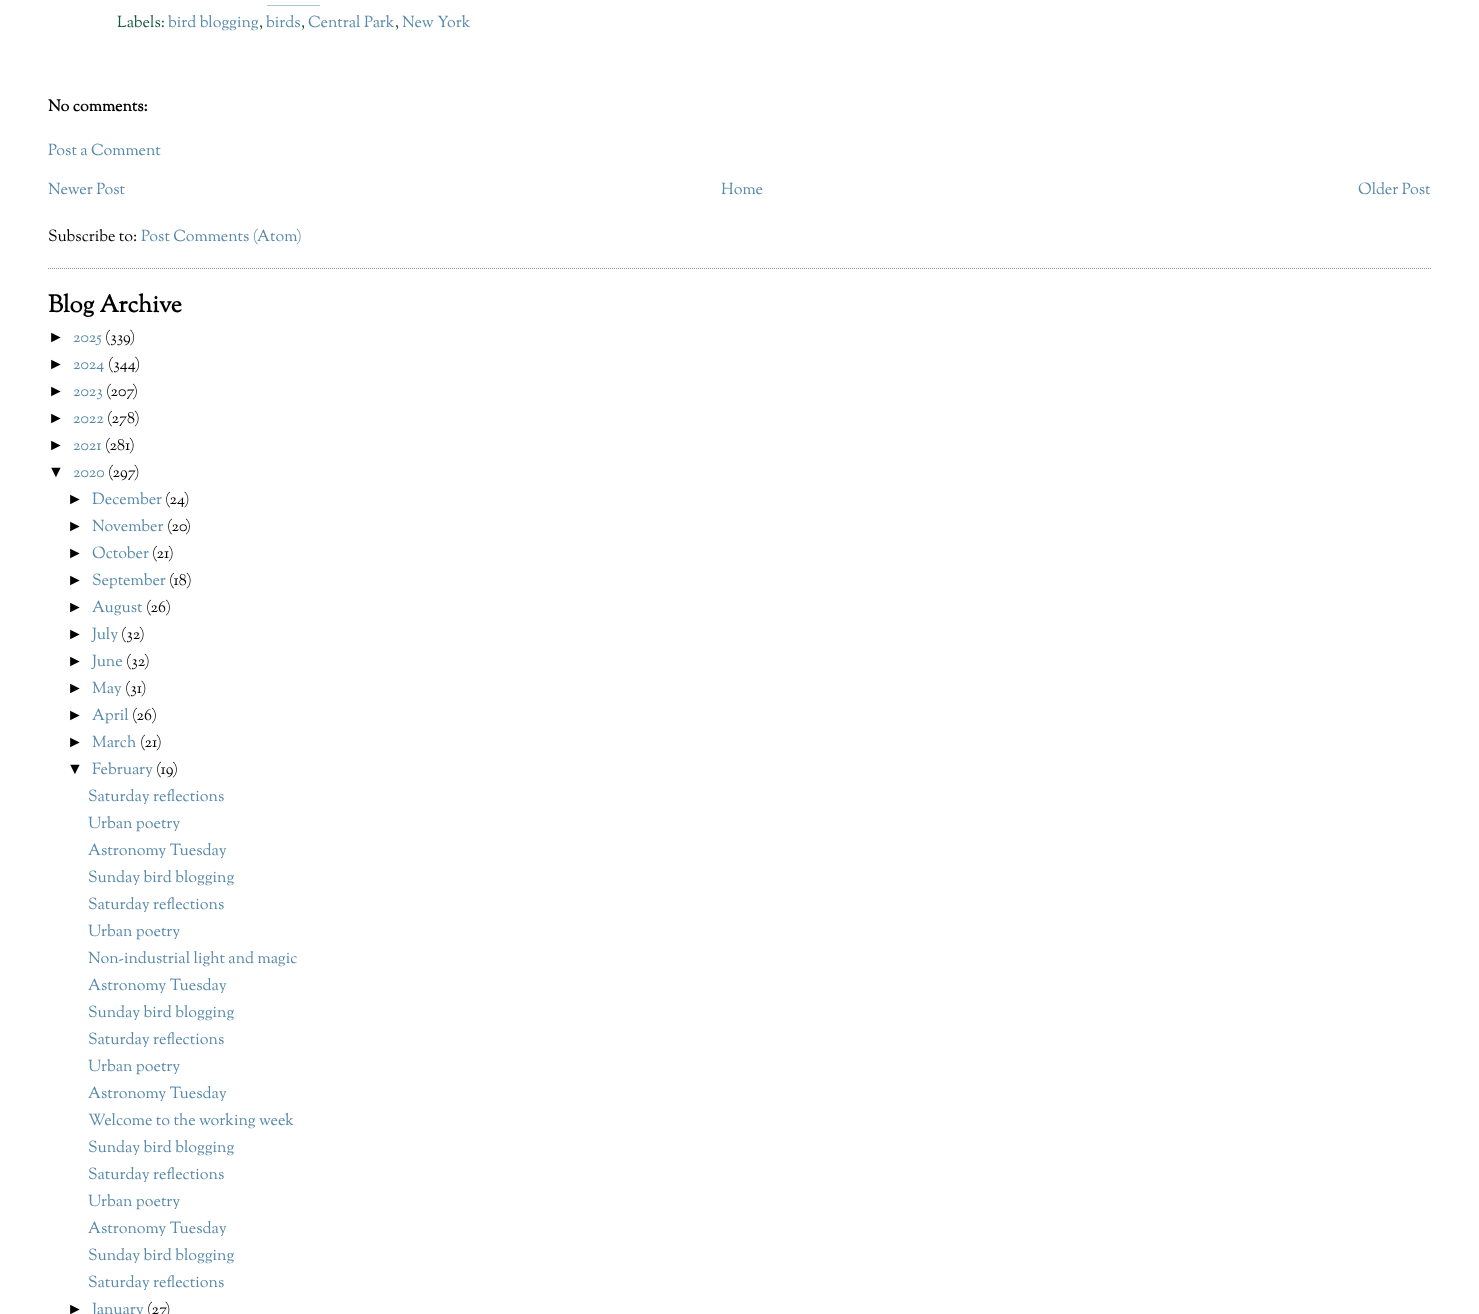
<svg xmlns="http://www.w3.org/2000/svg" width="1479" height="1314">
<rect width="100%" height="100%" fill="#fff"/>
<path d="M48 268.5h1383" fill="none" stroke="#999" stroke-dasharray="1 1"/>
<path d="M267.5 5.5h52.5" fill="none" stroke="#58a" stroke-dasharray="1 1"/>
<text x="117" y="27" style="font-family:Sorts Mill Goudy;font-size:16px;fill:#11593c">Labels:</text>
<text x="168" y="27" style="font-family:Sorts Mill Goudy;font-size:16px;fill:#58a">bird blogging</text>
<text x="259" y="27" style="font-family:Sorts Mill Goudy;font-size:16px;fill:#11593c">,</text>
<text x="266" y="27" style="font-family:Sorts Mill Goudy;font-size:16px;fill:#58a">birds</text>
<text x="301" y="27" style="font-family:Sorts Mill Goudy;font-size:16px;fill:#11593c">,</text>
<text x="308" y="27" style="font-family:Sorts Mill Goudy;font-size:16px;fill:#58a">Central Park</text>
<text x="395" y="27" style="font-family:Sorts Mill Goudy;font-size:16px;fill:#11593c">,</text>
<text x="402" y="27" style="font-family:Sorts Mill Goudy;font-size:16px;fill:#58a">New York</text>
<text x="48" y="111" style="font-family:Sorts Mill Goudy;font-size:16px;font-weight:bold;fill:#000">No comments:</text>
<text x="48" y="155" style="font-family:Sorts Mill Goudy;font-size:16px;fill:#58a">Post a Comment</text>
<text x="48" y="194" style="font-family:Sorts Mill Goudy;font-size:16px;fill:#58a">Newer Post</text>
<text x="721" y="194" style="font-family:Sorts Mill Goudy;font-size:16px;fill:#58a">Home</text>
<text x="1358" y="194" style="font-family:Sorts Mill Goudy;font-size:16px;fill:#58a">Older Post</text>
<text x="48" y="241" style="font-family:Sorts Mill Goudy;font-size:16px;fill:#000">Subscribe to:</text>
<text x="141" y="241" style="font-family:Sorts Mill Goudy;font-size:16px;fill:#58a">Post Comments (Atom)</text>
<text x="48" y="312" style="font-family:Sorts Mill Goudy;font-size:24px;font-weight:bold;fill:#000">Blog Archive</text>
<text x="48" y="342" style="font-family:Liberation Sans;font-size:16px;fill:#000">►</text>
<text x="73" y="342" style="font-family:Sorts Mill Goudy;font-size:16px;fill:#58a">2025</text>
<text x="105" y="342" style="font-family:Sorts Mill Goudy;font-size:16px;fill:#000">(339)</text>
<text x="48" y="369" style="font-family:Liberation Sans;font-size:16px;fill:#000">►</text>
<text x="73" y="369" style="font-family:Sorts Mill Goudy;font-size:16px;fill:#58a">2024</text>
<text x="108" y="369" style="font-family:Sorts Mill Goudy;font-size:16px;fill:#000">(344)</text>
<text x="48" y="396" style="font-family:Liberation Sans;font-size:16px;fill:#000">►</text>
<text x="73" y="396" style="font-family:Sorts Mill Goudy;font-size:16px;fill:#58a">2023</text>
<text x="106" y="396" style="font-family:Sorts Mill Goudy;font-size:16px;fill:#000">(207)</text>
<text x="48" y="423" style="font-family:Liberation Sans;font-size:16px;fill:#000">►</text>
<text x="73" y="423" style="font-family:Sorts Mill Goudy;font-size:16px;fill:#58a">2022</text>
<text x="107" y="423" style="font-family:Sorts Mill Goudy;font-size:16px;fill:#000">(278)</text>
<text x="48" y="450" style="font-family:Liberation Sans;font-size:16px;fill:#000">►</text>
<text x="73" y="450" style="font-family:Sorts Mill Goudy;font-size:16px;fill:#58a">2021</text>
<text x="105" y="450" style="font-family:Sorts Mill Goudy;font-size:16px;fill:#000">(281)</text>
<text x="48" y="477" style="font-family:Liberation Sans;font-size:16px;fill:#000">▼</text>
<text x="73" y="477" style="font-family:Sorts Mill Goudy;font-size:16px;fill:#58a">2020</text>
<text x="108" y="477" style="font-family:Sorts Mill Goudy;font-size:16px;fill:#000">(297)</text>
<text x="67" y="504" style="font-family:Liberation Sans;font-size:16px;fill:#000">►</text>
<text x="92" y="504" style="font-family:Sorts Mill Goudy;font-size:16px;fill:#58a">December</text>
<text x="165" y="504" style="font-family:Sorts Mill Goudy;font-size:16px;fill:#000">(24)</text>
<text x="67" y="531" style="font-family:Liberation Sans;font-size:16px;fill:#000">►</text>
<text x="92" y="531" style="font-family:Sorts Mill Goudy;font-size:16px;fill:#58a">November</text>
<text x="167" y="531" style="font-family:Sorts Mill Goudy;font-size:16px;fill:#000">(20)</text>
<text x="67" y="558" style="font-family:Liberation Sans;font-size:16px;fill:#000">►</text>
<text x="92" y="558" style="font-family:Sorts Mill Goudy;font-size:16px;fill:#58a">October</text>
<text x="152" y="558" style="font-family:Sorts Mill Goudy;font-size:16px;fill:#000">(21)</text>
<text x="67" y="585" style="font-family:Liberation Sans;font-size:16px;fill:#000">►</text>
<text x="92" y="585" style="font-family:Sorts Mill Goudy;font-size:16px;fill:#58a">September</text>
<text x="169" y="585" style="font-family:Sorts Mill Goudy;font-size:16px;fill:#000">(18)</text>
<text x="67" y="612" style="font-family:Liberation Sans;font-size:16px;fill:#000">►</text>
<text x="92" y="612" style="font-family:Sorts Mill Goudy;font-size:16px;fill:#58a">August</text>
<text x="146" y="612" style="font-family:Sorts Mill Goudy;font-size:16px;fill:#000">(26)</text>
<text x="67" y="639" style="font-family:Liberation Sans;font-size:16px;fill:#000">►</text>
<text x="92" y="639" style="font-family:Sorts Mill Goudy;font-size:16px;fill:#58a">July</text>
<text x="121" y="639" style="font-family:Sorts Mill Goudy;font-size:16px;fill:#000">(32)</text>
<text x="67" y="666" style="font-family:Liberation Sans;font-size:16px;fill:#000">►</text>
<text x="92" y="666" style="font-family:Sorts Mill Goudy;font-size:16px;fill:#58a">June</text>
<text x="126" y="666" style="font-family:Sorts Mill Goudy;font-size:16px;fill:#000">(32)</text>
<text x="67" y="693" style="font-family:Liberation Sans;font-size:16px;fill:#000">►</text>
<text x="92" y="693" style="font-family:Sorts Mill Goudy;font-size:16px;fill:#58a">May</text>
<text x="125" y="693" style="font-family:Sorts Mill Goudy;font-size:16px;fill:#000">(31)</text>
<text x="67" y="720" style="font-family:Liberation Sans;font-size:16px;fill:#000">►</text>
<text x="92" y="720" style="font-family:Sorts Mill Goudy;font-size:16px;fill:#58a">April</text>
<text x="132" y="720" style="font-family:Sorts Mill Goudy;font-size:16px;fill:#000">(26)</text>
<text x="67" y="747" style="font-family:Liberation Sans;font-size:16px;fill:#000">►</text>
<text x="92" y="747" style="font-family:Sorts Mill Goudy;font-size:16px;fill:#58a">March</text>
<text x="140" y="747" style="font-family:Sorts Mill Goudy;font-size:16px;fill:#000">(21)</text>
<text x="67" y="774" style="font-family:Liberation Sans;font-size:16px;fill:#000">▼</text>
<text x="92" y="774" style="font-family:Sorts Mill Goudy;font-size:16px;fill:#58a">February</text>
<text x="156" y="774" style="font-family:Sorts Mill Goudy;font-size:16px;fill:#000">(19)</text>
<text x="88" y="801" style="font-family:Sorts Mill Goudy;font-size:16px;fill:#58a">Saturday reflections</text>
<text x="88" y="828" style="font-family:Sorts Mill Goudy;font-size:16px;fill:#58a">Urban poetry</text>
<text x="88" y="855" style="font-family:Sorts Mill Goudy;font-size:16px;fill:#58a">Astronomy Tuesday</text>
<text x="88" y="882" style="font-family:Sorts Mill Goudy;font-size:16px;fill:#58a">Sunday bird blogging</text>
<text x="88" y="909" style="font-family:Sorts Mill Goudy;font-size:16px;fill:#58a">Saturday reflections</text>
<text x="88" y="936" style="font-family:Sorts Mill Goudy;font-size:16px;fill:#58a">Urban poetry</text>
<text x="88" y="963" style="font-family:Sorts Mill Goudy;font-size:16px;fill:#58a">Non-industrial light and magic</text>
<text x="88" y="990" style="font-family:Sorts Mill Goudy;font-size:16px;fill:#58a">Astronomy Tuesday</text>
<text x="88" y="1017" style="font-family:Sorts Mill Goudy;font-size:16px;fill:#58a">Sunday bird blogging</text>
<text x="88" y="1044" style="font-family:Sorts Mill Goudy;font-size:16px;fill:#58a">Saturday reflections</text>
<text x="88" y="1071" style="font-family:Sorts Mill Goudy;font-size:16px;fill:#58a">Urban poetry</text>
<text x="88" y="1098" style="font-family:Sorts Mill Goudy;font-size:16px;fill:#58a">Astronomy Tuesday</text>
<text x="88" y="1125" style="font-family:Sorts Mill Goudy;font-size:16px;fill:#58a">Welcome to the working week</text>
<text x="88" y="1152" style="font-family:Sorts Mill Goudy;font-size:16px;fill:#58a">Sunday bird blogging</text>
<text x="88" y="1179" style="font-family:Sorts Mill Goudy;font-size:16px;fill:#58a">Saturday reflections</text>
<text x="88" y="1206" style="font-family:Sorts Mill Goudy;font-size:16px;fill:#58a">Urban poetry</text>
<text x="88" y="1233" style="font-family:Sorts Mill Goudy;font-size:16px;fill:#58a">Astronomy Tuesday</text>
<text x="88" y="1260" style="font-family:Sorts Mill Goudy;font-size:16px;fill:#58a">Sunday bird blogging</text>
<text x="88" y="1287" style="font-family:Sorts Mill Goudy;font-size:16px;fill:#58a">Saturday reflections</text>
<text x="67" y="1314" style="font-family:Liberation Sans;font-size:16px;fill:#000">►</text>
<text x="92" y="1314" style="font-family:Sorts Mill Goudy;font-size:16px;fill:#58a">January</text>
<text x="147" y="1314" style="font-family:Sorts Mill Goudy;font-size:16px;fill:#000">(27)</text>
</svg>
